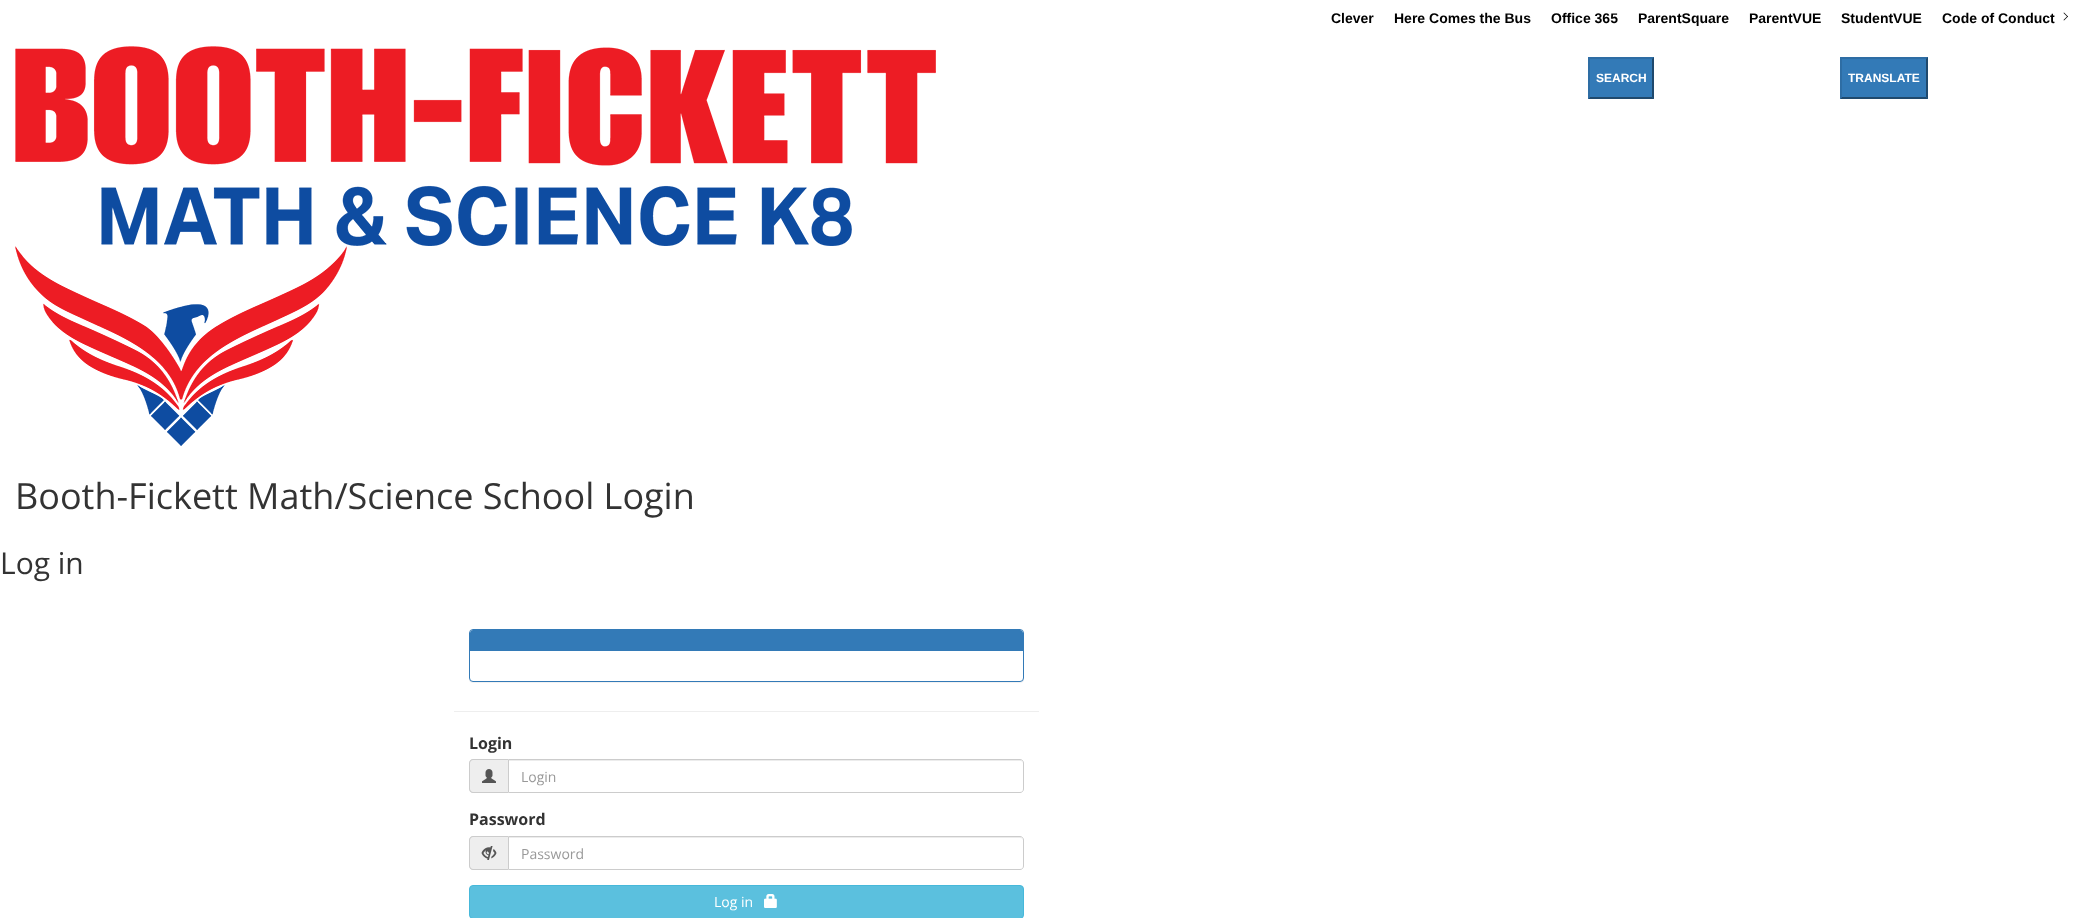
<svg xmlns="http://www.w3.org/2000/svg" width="2077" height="918">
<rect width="100%" height="100%" fill="#fff"/>
<text x="1331" y="23" style="font-family:Liberation Sans;font-size:14px;font-weight:bold;fill:#000">Clever</text>
<text x="1394" y="23" style="font-family:Liberation Sans;font-size:14px;font-weight:bold;fill:#000">Here Comes the Bus</text>
<text x="1551" y="23" style="font-family:Liberation Sans;font-size:14px;font-weight:bold;fill:#000">Office 365</text>
<text x="1638" y="23" style="font-family:Liberation Sans;font-size:14px;font-weight:bold;fill:#000">ParentSquare</text>
<text x="1749" y="23" style="font-family:Liberation Sans;font-size:14px;font-weight:bold;fill:#000">ParentVUE</text>
<text x="1841" y="23" style="font-family:Liberation Sans;font-size:14px;font-weight:bold;fill:#000">StudentVUE</text>
<text x="1942" y="23" style="font-family:Liberation Sans;font-size:14px;font-weight:bold;fill:#000">Code of Conduct</text>
<path d="M2063.5 13l.5-.5l4 4l-.5 .5z" fill="#000"/>
<path d="M2063.5 20l4-4l.5 .5l-4 4z" fill="#000"/>
<image x="15" y="46" width="921" height="200" href="media/1.png"/>
<image x="15" y="246" width="332" height="200" href="media/2.png"/>
<rect x="1588" y="57" width="66" height="42" fill="#337ab7"/>
<path d="M1588 57h66l-2 2h-62z" fill="#2e6da4"/>
<path d="M1654 57v42l-2-2v-38z" fill="#1f496d"/>
<path d="M1654 99h-66l2-2h62z" fill="#1f496d"/>
<path d="M1588 99v-42l2 2v38z" fill="#2e6da4"/>
<text x="1596" y="82" style="font-family:Liberation Sans;font-size:12px;font-weight:bold;fill:#fff">SEARCH</text>
<rect x="1840" y="57" width="88" height="42" fill="#337ab7"/>
<path d="M1840 57h88l-2 2h-84z" fill="#2e6da4"/>
<path d="M1928 57v42l-2-2v-38z" fill="#1f496d"/>
<path d="M1928 99h-88l2-2h84z" fill="#1f496d"/>
<path d="M1840 99v-42l2 2v38z" fill="#2e6da4"/>
<text x="1848" y="82" style="font-family:Liberation Sans;font-size:12px;font-weight:bold;fill:#fff">TRANSLATE</text>
<text x="15" y="509" style="font-family:Open Sans;font-size:36px;fill:#333">Booth-Fickett Math/Science School Login</text>
<text x="0" y="574" style="font-family:Open Sans;font-size:30px;fill:#333">Log in</text>
<rect x="454" y="711" width="585" height="1" fill="#eee"/>
<rect x="469" y="630" width="555" height="53" rx="4" fill="#0000000d" filter="blur(0.5px)"/>
<rect x="469.5" y="629.5" width="554" height="52" rx="3.5" fill="#fff" stroke="#337ab7"/>
<path d="M473 630h547c1.5 0 3 1.5 3 3v18h-553v-18c0-1.5 1.5-3 3-3z" fill="#337ab7"/>
<text x="469" y="749" style="font-family:Open Sans;font-size:16px;font-weight:bold;fill:#333">Login</text>
<path d="M473 759h35v34h-35c-2 0-4-2-4-4v-26c0-2 2-4 4-4z" fill="#eee"/>
<path d="M473 759h35v34h-35c-2 0-4-2-4-4v-26c0-2 2-4 4-4zm0 1h35v32h-35c-1.5 0-3-1.5-3-3v-26c0-1.5 1.5-3 3-3z" fill="#ccc" fill-rule="evenodd"/>
<image x="482" y="769" width="14" height="14" href="media/3.png"/>
<path d="M509 761h511c2 0 3 1 3 3c0-2-1-4-3-4h-511z" fill="#ececec"/>
<path d="M508.5 759.5h511.5c2 0 3.5 1.5 3.5 3.5v26c0 2-1.5 3.5-3.5 3.5h-511.5z" fill="none" stroke="#ccc"/>
<text x="521" y="782" style="font-family:Open Sans;font-size:14px;fill:#999">Login</text>
<text x="469" y="825" style="font-family:Open Sans;font-size:16px;font-weight:bold;fill:#333">Password</text>
<path d="M473 836h35v34h-35c-2 0-4-2-4-4v-26c0-2 2-4 4-4z" fill="#eee"/>
<path d="M473 836h35v34h-35c-2 0-4-2-4-4v-26c0-2 2-4 4-4zm0 1h35v32h-35c-1.5 0-3-1.5-3-3v-26c0-1.5 1.5-3 3-3z" fill="#ccc" fill-rule="evenodd"/>
<image x="481" y="846" width="16" height="14" href="media/4.png"/>
<path d="M509 838h511c2 0 3 1 3 3c0-2-1-4-3-4h-511z" fill="#ececec"/>
<path d="M508.5 836.5h511.5c2 0 3.5 1.5 3.5 3.5v26c0 2-1.5 3.5-3.5 3.5h-511.5z" fill="none" stroke="#ccc"/>
<text x="521" y="859" style="font-family:Open Sans;font-size:14px;fill:#999">Password</text>
<rect x="469.5" y="885.5" width="554" height="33" rx="3.5" fill="#5bc0de" stroke="#46b8da"/>
<text x="714" y="907" style="font-family:Open Sans;font-size:14px;fill:#fff">Log in</text>
<image x="764" y="894" width="13" height="14" href="media/5.png"/>
</svg>
